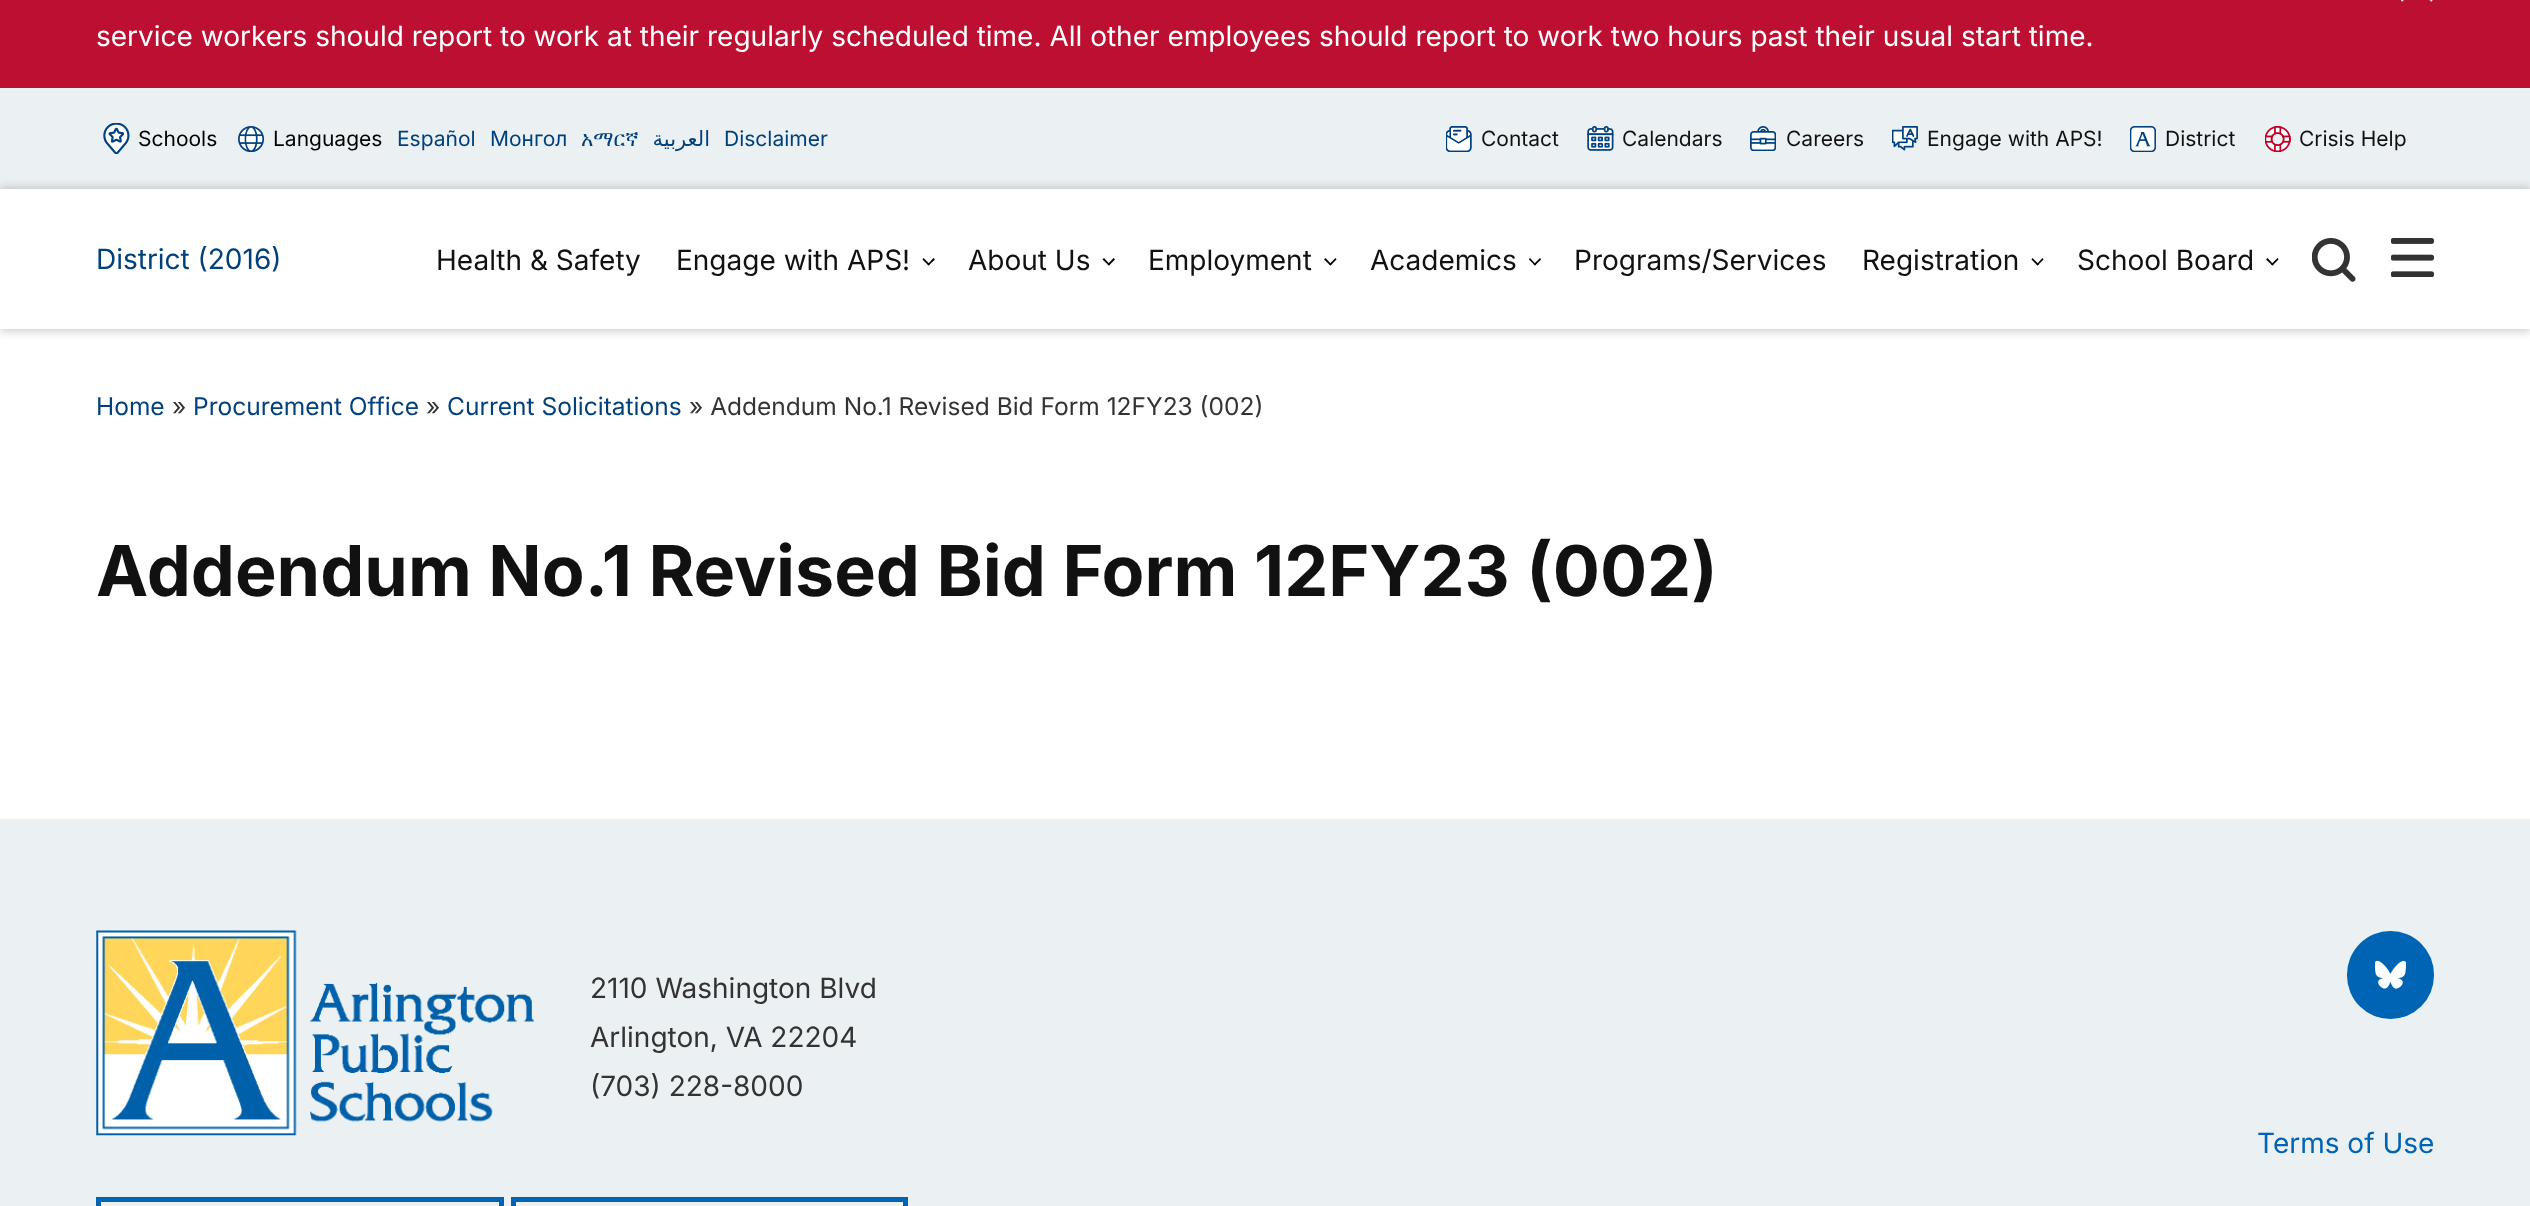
<svg xmlns="http://www.w3.org/2000/svg" width="2530" height="1206">
<defs>
<clipPath id="clip1"><path d="M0 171h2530v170h-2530zm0 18h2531v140h-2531z" clip-rule="evenodd"/></clipPath>
<clipPath id="clip2"><path d="M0 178h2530v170h-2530zm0 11h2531v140h-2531z" clip-rule="evenodd"/></clipPath>
</defs>
<rect width="100%" height="100%" fill="#fff"/>
<rect width="2530" height="88" fill="#bc0f31"/>
<path d="M2432-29l-30.5 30m0-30l30.5 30" fill="none" stroke="#fff" stroke-width="1.8"/>
<text x="96" y="46" style="font-family:Inter;font-size:28px;fill:#fff">service workers should report to work at their regularly scheduled time. All other employees should report to work two hours past their usual start time.</text>
<rect y="88" width="2530" height="101" fill="#ebf0f3"/>
<image x="103" y="123" width="27" height="31" href="media/1.png"/>
<text x="138" y="146" style="font-family:Inter;font-size:21px;fill:#000">Schools</text>
<image x="238" y="126" width="26" height="26" href="media/2.png"/>
<text x="273" y="146" style="font-family:Inter;font-size:21px;fill:#000">Languages</text>
<text x="397" y="146" style="font-family:Inter;font-size:21px;fill:#00407c">Español</text>
<text x="490" y="146" style="font-family:Inter;font-size:21px;fill:#00407c">Монгол</text>
<text x="581" y="146" style="font-family:FreeSerif;font-size:21px;fill:#00407c">አማርኛ</text>
<text x="710" y="146" style="font-family:DejaVu Sans;font-size:21px;direction:rtl;fill:#00407c">العربية</text>
<text x="724" y="146" style="font-family:Inter;font-size:21px;fill:#00407c">Disclaimer</text>
<image x="1446" y="126" width="26" height="26" href="media/3.png"/>
<text x="1481" y="146" style="font-family:Inter;font-size:21px;fill:#111">Contact</text>
<image x="1587" y="126" width="27" height="25" href="media/4.png"/>
<text x="1622" y="146" style="font-family:Inter;font-size:21px;fill:#111">Calendars</text>
<image x="1750" y="126" width="26" height="25" href="media/5.png"/>
<text x="1786" y="146" style="font-family:Inter;font-size:21px;fill:#111">Careers</text>
<image x="1892" y="126" width="26" height="25" href="media/6.png"/>
<text x="1927" y="146" style="font-family:Inter;font-size:21px;fill:#111">Engage with APS!</text>
<image x="2130" y="126" width="26" height="26" href="media/7.png"/>
<text x="2165" y="146" style="font-family:Inter;font-size:21px;fill:#111">District</text>
<image x="2265" y="126" width="26" height="26" href="media/8.png"/>
<text x="2299" y="146" style="font-family:Inter;font-size:21px;fill:#111">Crisis Help</text>
<g clip-path="url(#clip1)">
<rect y="186" width="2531" height="140" fill="#00000021" filter="blur(4.5px)"/>
</g>
<g clip-path="url(#clip2)">
<rect y="193" width="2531" height="140" fill="#00000021" filter="blur(4.5px)"/>
</g>
<text x="96" y="269" style="font-family:Inter;font-size:28px;fill:#00407c">District (2016)</text>
<text x="436" y="270" style="font-family:Inter;font-size:28px;fill:#111">Health &amp; Safety</text>
<text x="676" y="270" style="font-family:Inter;font-size:28px;fill:#111">Engage with APS!</text>
<path d="M933.5 258l1.5 1.5l-6.5 6l-1-1z" fill="#000"/>
<path d="M923.5 258l6.5 6.5l-1.5 1l-6-6z" fill="#000"/>
<text x="968" y="270" style="font-family:Inter;font-size:28px;fill:#111">About Us</text>
<path d="M1113.5 258l1.5 1.5l-6 6l-1.5-1z" fill="#000"/>
<path d="M1104 258l6 6.5l-1 1l-6.5-6z" fill="#000"/>
<text x="1148" y="270" style="font-family:Inter;font-size:28px;fill:#111">Employment</text>
<path d="M1335.5 258l1 1.5l-6 6l-1.5-1z" fill="#000"/>
<path d="M1325.5 258l6 6.5l-1 1l-6.5-6z" fill="#000"/>
<text x="1370" y="270" style="font-family:Inter;font-size:28px;fill:#111">Academics</text>
<path d="M1540 258l1 1.5l-6 6l-1.5-1z" fill="#000"/>
<path d="M1530 258l6 6.5l-1 1l-6-6z" fill="#000"/>
<text x="1574" y="270" style="font-family:Inter;font-size:28px;fill:#111">Programs/Services</text>
<text x="1862" y="270" style="font-family:Inter;font-size:28px;fill:#111">Registration</text>
<path d="M2042.5 258l1 1.5l-6 6l-1-1z" fill="#000"/>
<path d="M2032.5 258l6.5 6.5l-1.5 1l-6-6z" fill="#000"/>
<text x="2077" y="270" style="font-family:Inter;font-size:28px;fill:#111">School Board</text>
<path d="M2277.5 258l1 1.5l-6 6l-1.5-1z" fill="#000"/>
<path d="M2267.5 258l6 6.5l-1 1l-6.5-6z" fill="#000"/>
<image x="2312" y="238" width="44" height="44" href="media/9.png"/>
<image x="2391" y="238" width="43" height="39" href="media/10.png"/>
<text x="96" y="415" style="font-family:Inter;font-size:24.5px;fill:#00407c">Home</text>
<text x="172" y="415" style="font-family:Inter;font-size:24.5px;fill:#333">»</text>
<text x="193" y="415" style="font-family:Inter;font-size:24.5px;fill:#00407c">Procurement Office</text>
<text x="426" y="415" style="font-family:Inter;font-size:24.5px;fill:#333">»</text>
<text x="447" y="415" style="font-family:Inter;font-size:24.5px;fill:#00407c">Current Solicitations</text>
<text x="689" y="415" style="font-family:Inter;font-size:24.5px;fill:#333">» Addendum No.1 Revised Bid Form 12FY23 (002)</text>
<text x="96" y="596" style="font-family:Inter;font-size:70px;font-weight:bold;fill:#111">Addendum No.1 Revised Bid Form 12FY23 (002)</text>
<rect y="819" width="2530" height="387" fill="#ebf0f3"/>
<image x="96" y="930" width="438" height="206" href="media/11.png"/>
<text x="590" y="998" style="font-family:Inter;font-size:28px;fill:#333">2110 Washington Blvd</text>
<text x="590" y="1047" style="font-family:Inter;font-size:28px;fill:#333">Arlington, VA 22204</text>
<text x="590" y="1096" style="font-family:Inter;font-size:28px;fill:#333">(703) 228-8000</text>
<rect x="98.5" y="1199.5" width="403" height="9" fill="none" stroke="#0064b5" stroke-width="5"/>
<rect x="513.5" y="1199.5" width="392" height="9" fill="none" stroke="#0064b5" stroke-width="5"/>
<rect x="2347" y="931" width="87" height="88" rx="43.5" fill="#0064b5"/>
<image x="2375" y="960" width="31" height="29" href="media/12.png"/>
<text x="2257" y="1153" style="font-family:Inter;font-size:28px;fill:#0064b5">Terms of Use</text>
</svg>
